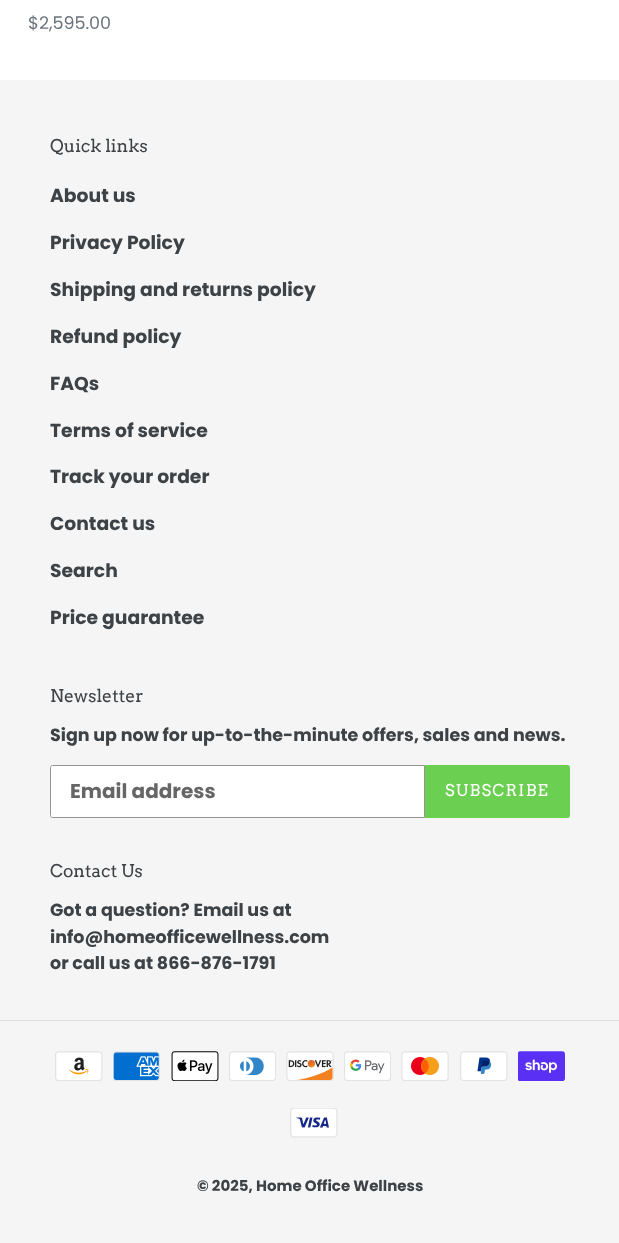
<svg xmlns="http://www.w3.org/2000/svg" width="619" height="1243">
<rect width="100%" height="100%" fill="#fff"/>
<text x="28" y="29" style="font-family:Poppins;font-size:17.5px;fill:#69727b">$2,595.00</text>
<rect y="80" width="619" height="1163" fill="#f5f5f5"/>
<text x="50" y="152" style="font-family:Arvo;font-size:17.5px;fill:#3d4246">Quick links</text>
<text x="50" y="202" style="font-family:Poppins;font-size:18.75px;font-weight:bold;fill:#3d4246">About us</text>
<text x="50" y="249" style="font-family:Poppins;font-size:18.75px;font-weight:bold;fill:#3d4246">Privacy Policy</text>
<text x="50" y="296" style="font-family:Poppins;font-size:18.75px;font-weight:bold;fill:#3d4246">Shipping and returns policy</text>
<text x="50" y="343" style="font-family:Poppins;font-size:18.75px;font-weight:bold;fill:#3d4246">Refund policy</text>
<text x="50" y="390" style="font-family:Poppins;font-size:18.75px;font-weight:bold;fill:#3d4246">FAQs</text>
<text x="50" y="437" style="font-family:Poppins;font-size:18.75px;font-weight:bold;fill:#3d4246">Terms of service</text>
<text x="50" y="483" style="font-family:Poppins;font-size:18.75px;font-weight:bold;fill:#3d4246">Track your order</text>
<text x="50" y="530" style="font-family:Poppins;font-size:18.75px;font-weight:bold;fill:#3d4246">Contact us</text>
<text x="50" y="577" style="font-family:Poppins;font-size:18.75px;font-weight:bold;fill:#3d4246">Search</text>
<text x="50" y="624" style="font-family:Poppins;font-size:18.75px;font-weight:bold;fill:#3d4246">Price guarantee</text>
<text x="50" y="702" style="font-family:Arvo;font-size:17.5px;fill:#3d4246">Newsletter</text>
<text x="50" y="741" style="font-family:Poppins;font-size:17.5px;font-weight:bold;fill:#3d4246">Sign up now for up-to-the-minute offers, sales and news.</text>
<path d="M52.5 765.5h372v52h-372c-1 0-2-1-2-2v-48c0-1 1-2 2-2z" fill="#fff" stroke="#949494"/>
<text x="70" y="798" style="font-family:Poppins;font-size:20px;font-weight:bold;fill:#666">Email address</text>
<path d="M425 765h142.5c1.5 0 2.5 1 2.5 2.5v48c0 1.5-1 2.5-2.5 2.5h-142.5z" fill="#6bcf51"/>
<text x="445" y="796" style="font-family:Arvo;font-size:16.25px;letter-spacing:1.25px;fill:#fff">SUBSCRIBE</text>
<text x="50" y="877" style="font-family:Arvo;font-size:17.5px;fill:#3d4246">Contact Us</text>
<text x="50" y="916" style="font-family:Poppins;font-size:17.5px;font-weight:bold;fill:#3d4246">Got a question? Email us at</text>
<text x="50" y="943" style="font-family:Poppins;font-size:17.5px;font-weight:bold;fill:#3d4246">info@homeofficewellness.com</text>
<text x="50" y="969" style="font-family:Poppins;font-size:17.5px;font-weight:bold;fill:#3d4246">or call us at 866-876-1791</text>
<rect y="1020" width="619" height="1" fill="#dcdcdc"/>
<image x="55" y="1051" width="48" height="30" href="media/1.png"/>
<image x="113" y="1051" width="47" height="30" href="media/2.png"/>
<image x="171" y="1051" width="48" height="30" href="media/3.png"/>
<image x="229" y="1051" width="47" height="30" href="media/4.png"/>
<image x="286" y="1051" width="48" height="30" href="media/5.png"/>
<image x="344" y="1051" width="47" height="30" href="media/6.png"/>
<image x="401" y="1051" width="48" height="30" href="media/7.png"/>
<image x="460" y="1051" width="48" height="30" href="media/8.png"/>
<image x="518" y="1051" width="47" height="30" href="media/9.png"/>
<image x="290" y="1108" width="48" height="30" href="media/10.png"/>
<text x="197" y="1191" style="font-family:Poppins;font-size:15px;font-weight:bold;fill:#3d4246">© 2025, Home Office Wellness</text>
</svg>
